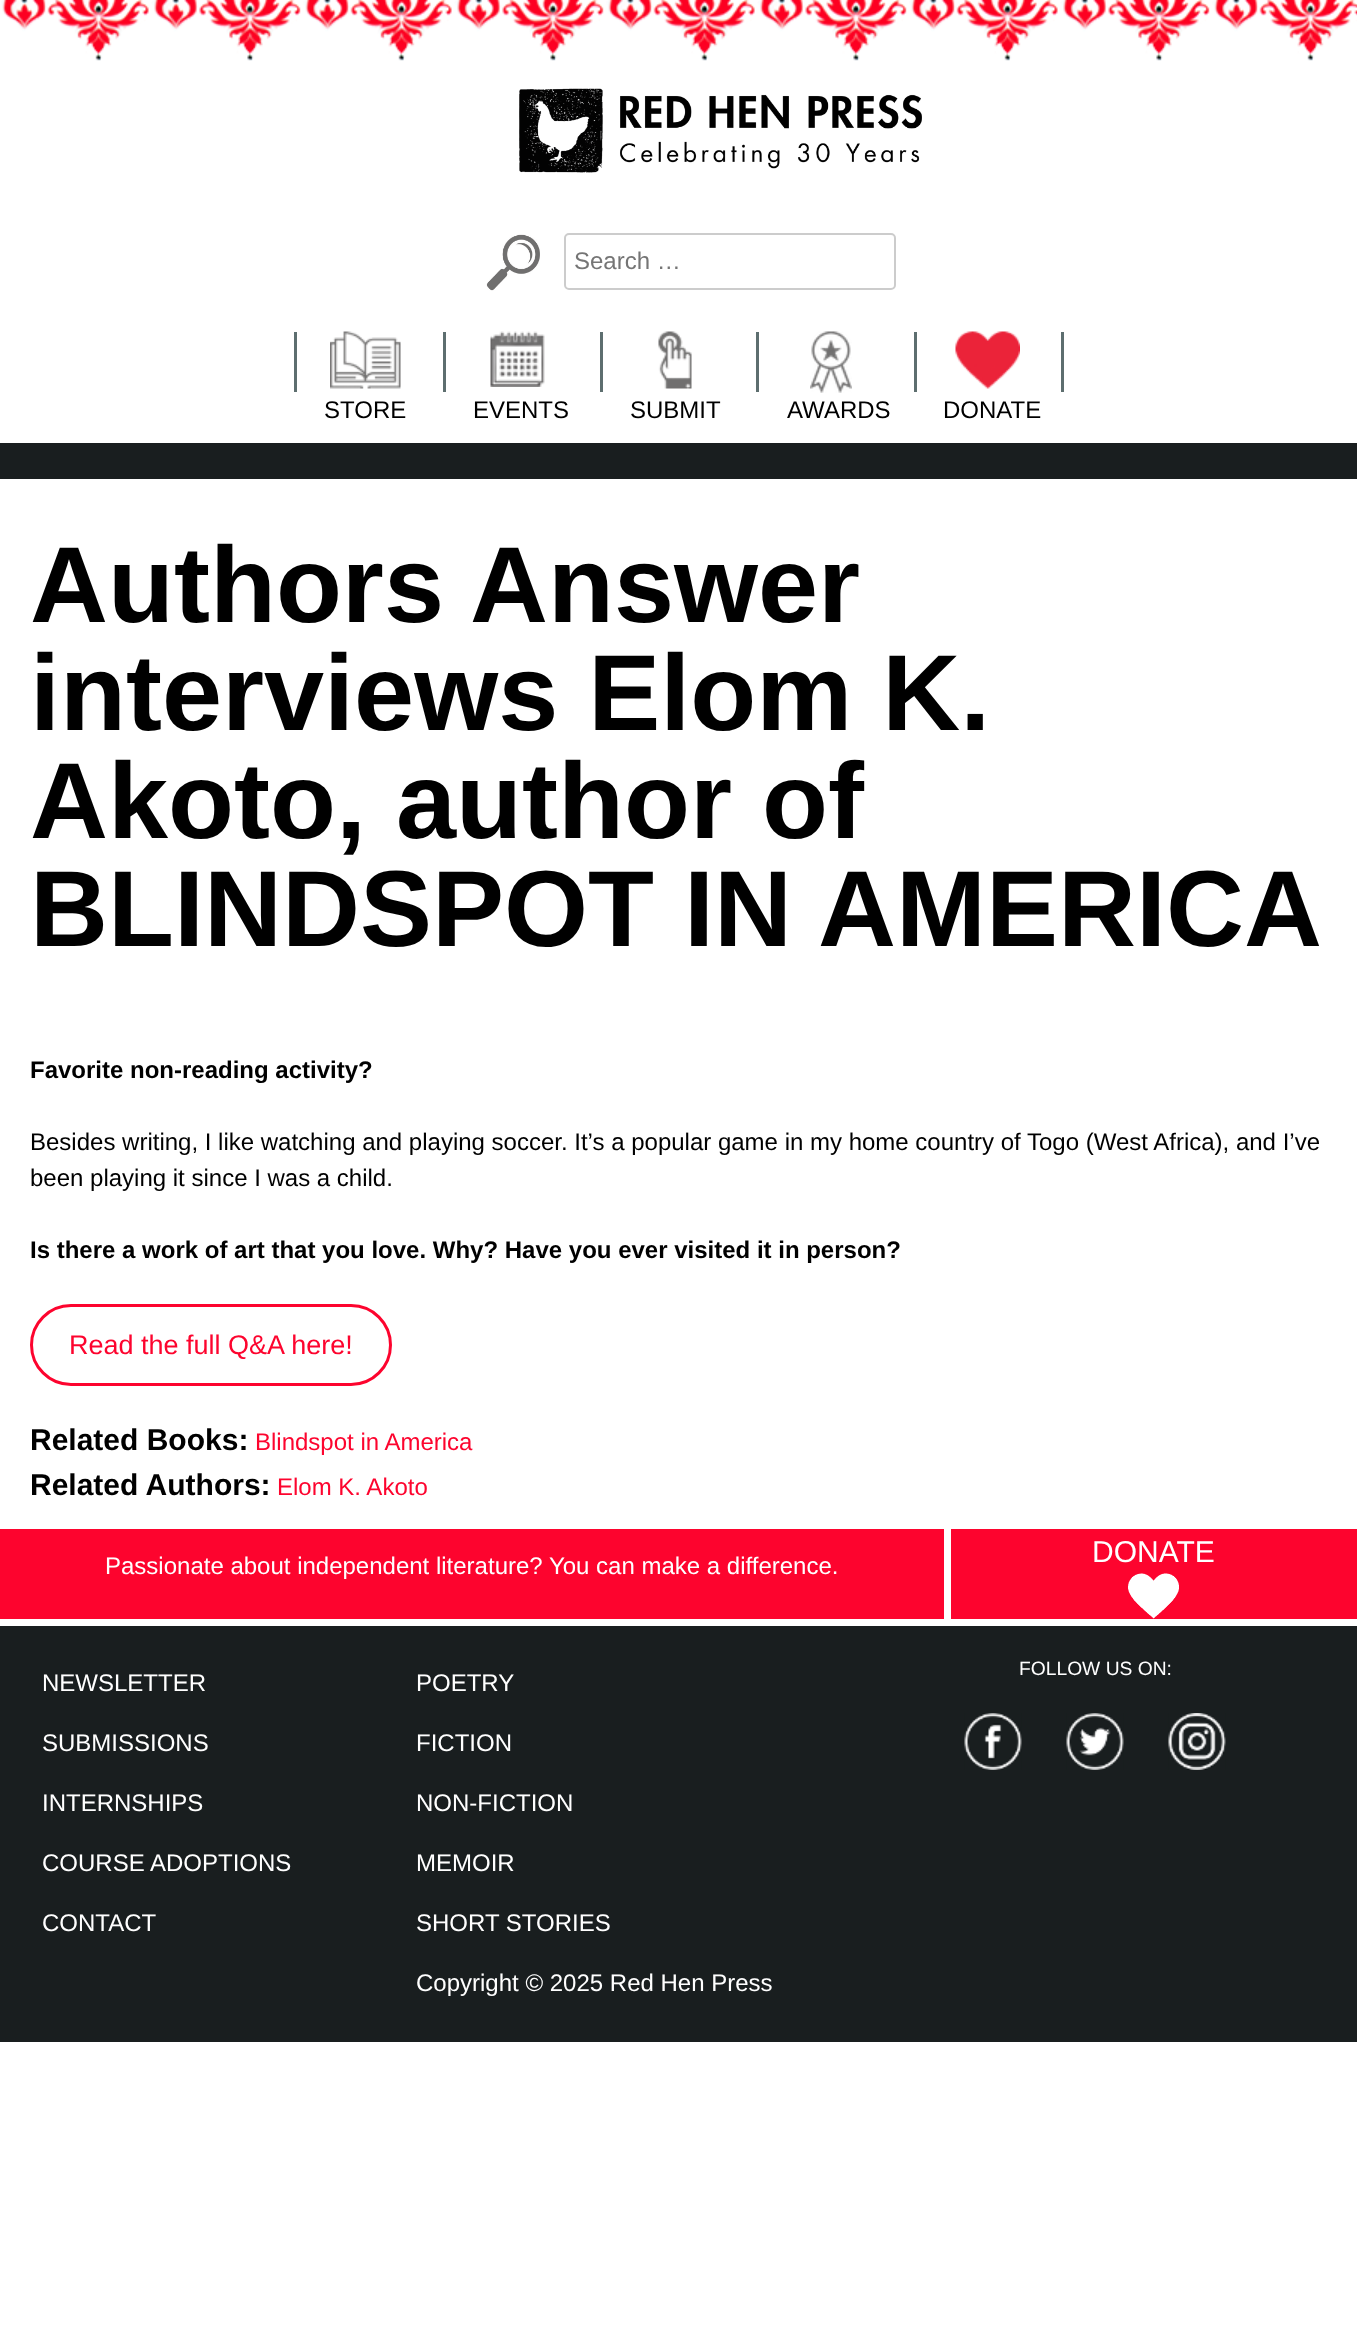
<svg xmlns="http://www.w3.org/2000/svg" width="1357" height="2328">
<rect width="100%" height="100%" fill="#fff"/>
<image x="1" y="0" width="1356" height="61" href="media/1.png"/>
<image x="519" y="88" width="403" height="85" href="media/2.png"/>
<image x="486" y="234" width="54" height="57" href="media/3.png"/>
<rect x="565" y="234" width="330" height="55" rx="4" fill="none" stroke="#ccc" stroke-width="2"/>
<text x="574" y="269" style="font-family:Liberation Sans;font-size:24px;fill:#757575">Search …</text>
<image x="330" y="331" width="71" height="58" href="media/4.png"/>
<rect x="294" y="332" width="3" height="60" fill="#5d6e6f"/>
<text x="324" y="418" style="font-family:Liberation Sans;font-size:24px;fill:#000">STORE</text>
<image x="490" y="331" width="55" height="56" href="media/5.png"/>
<rect x="443" y="332" width="3" height="60" fill="#5d6e6f"/>
<text x="473" y="418" style="font-family:Liberation Sans;font-size:24px;fill:#000">EVENTS</text>
<image x="658" y="331" width="34" height="58" href="media/6.png"/>
<rect x="600" y="332" width="3" height="60" fill="#5d6e6f"/>
<text x="630" y="418" style="font-family:Liberation Sans;font-size:24px;fill:#000">SUBMIT</text>
<image x="810" y="331" width="42" height="62" href="media/7.png"/>
<rect x="756" y="332" width="3" height="60" fill="#5d6e6f"/>
<text x="787" y="418" style="font-family:Liberation Sans;font-size:24px;fill:#000">AWARDS</text>
<image x="955" y="331" width="65" height="58" href="media/8.png"/>
<rect x="914" y="332" width="3" height="60" fill="#5d6e6f"/>
<rect x="1061" y="332" width="3" height="60" fill="#5d6e6f"/>
<text x="943" y="418" style="font-family:Liberation Sans;font-size:24px;fill:#000">DONATE</text>
<rect y="443" width="1357" height="36" fill="#191e1f"/>
<text x="30" y="622" style="font-family:Liberation Sans;font-size:108px;font-weight:bold;fill:#000">Authors Answer</text>
<text x="30" y="730" style="font-family:Liberation Sans;font-size:108px;font-weight:bold;fill:#000">interviews Elom K.</text>
<text x="30" y="838" style="font-family:Liberation Sans;font-size:108px;font-weight:bold;fill:#000">Akoto, author of</text>
<text x="30" y="946" style="font-family:Liberation Sans;font-size:108px;font-weight:bold;fill:#000">BLINDSPOT IN AMERICA</text>
<text x="30" y="1078" style="font-family:Liberation Sans;font-size:24px;font-weight:bold;fill:#000">Favorite non-reading activity?</text>
<text x="30" y="1150" style="font-family:Liberation Sans;font-size:24px;fill:#000">Besides writing, I like watching and playing soccer. It’s a popular game in my home country of Togo (West Africa), and I’ve</text>
<text x="30" y="1186" style="font-family:Liberation Sans;font-size:24px;fill:#000">been playing it since I was a child.</text>
<text x="30" y="1258" style="font-family:Liberation Sans;font-size:24px;font-weight:bold;fill:#000">Is there a work of art that you love. Why? Have you ever visited it in person?</text>
<rect x="31.5" y="1305.5" width="359" height="79" rx="39.5" fill="none" stroke="#fd042e" stroke-width="3"/>
<text x="69" y="1354" style="font-family:Liberation Sans;font-size:27px;fill:#fd042e">Read the full Q&amp;A here!</text>
<text x="30" y="1450" style="font-family:Liberation Sans;font-size:30px;font-weight:bold;fill:#000">Related Books:</text>
<text x="255" y="1450" style="font-family:Liberation Sans;font-size:24px;fill:#fd042e">Blindspot in America</text>
<text x="30" y="1495" style="font-family:Liberation Sans;font-size:30px;font-weight:bold;fill:#000">Related Authors:</text>
<text x="277" y="1495" style="font-family:Liberation Sans;font-size:24px;fill:#fd042e">Elom K. Akoto</text>
<rect y="1529" width="1357" height="90" fill="#fd042e"/>
<text x="1092" y="1562" style="font-family:Liberation Sans;font-size:30px;fill:#fff">DONATE</text>
<image x="1128" y="1573" width="51" height="46" href="media/9.png"/>
<rect x="944" y="1529" width="7" height="90" fill="#fff"/>
<text x="105" y="1574" style="font-family:Liberation Sans;font-size:24px;fill:#fff">Passionate about independent literature? You can make a difference.</text>
<rect y="1626" width="1357" height="416" fill="#191e1f"/>
<text x="1019" y="1675" style="font-family:Liberation Sans;font-size:19.25px;fill:#fff">FOLLOW US ON:</text>
<image x="964" y="1713" width="58" height="57" href="media/10.png"/>
<image x="1066" y="1713" width="58" height="57" href="media/11.png"/>
<image x="1168" y="1713" width="58" height="57" href="media/12.png"/>
<text x="42" y="1691" style="font-family:Liberation Sans;font-size:24px;fill:#fff">NEWSLETTER</text>
<text x="42" y="1751" style="font-family:Liberation Sans;font-size:24px;fill:#fff">SUBMISSIONS</text>
<text x="42" y="1811" style="font-family:Liberation Sans;font-size:24px;fill:#fff">INTERNSHIPS</text>
<text x="42" y="1871" style="font-family:Liberation Sans;font-size:24px;fill:#fff">COURSE ADOPTIONS</text>
<text x="42" y="1931" style="font-family:Liberation Sans;font-size:24px;fill:#fff">CONTACT</text>
<text x="416" y="1691" style="font-family:Liberation Sans;font-size:24px;fill:#fff">POETRY</text>
<text x="416" y="1751" style="font-family:Liberation Sans;font-size:24px;fill:#fff">FICTION</text>
<text x="416" y="1811" style="font-family:Liberation Sans;font-size:24px;fill:#fff">NON-FICTION</text>
<text x="416" y="1871" style="font-family:Liberation Sans;font-size:24px;fill:#fff">MEMOIR</text>
<text x="416" y="1931" style="font-family:Liberation Sans;font-size:24px;fill:#fff">SHORT STORIES</text>
<text x="416" y="1991" style="font-family:Liberation Sans;font-size:24px;fill:#fff">Copyright © 2025 Red Hen Press</text>
</svg>
